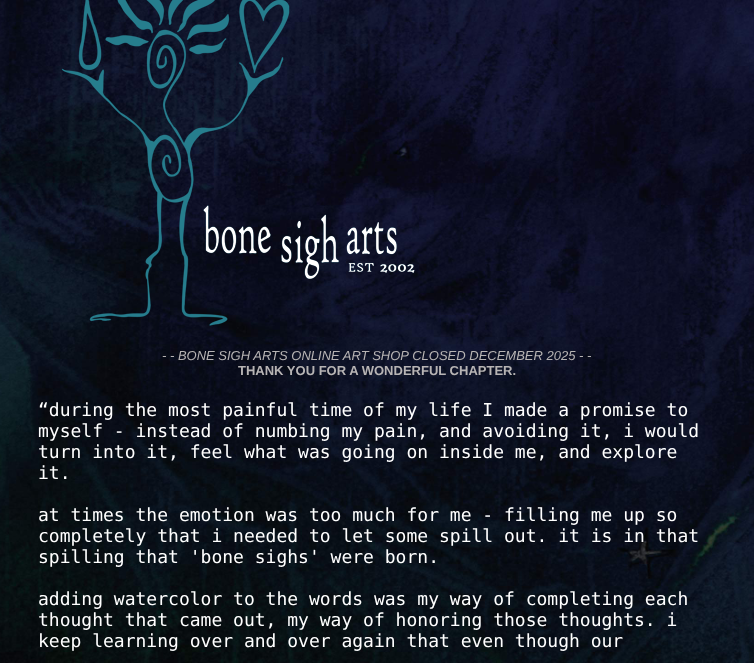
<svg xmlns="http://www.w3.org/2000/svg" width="754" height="663">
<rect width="100%" height="100%" fill="#fff"/>
<image x="0" y="0" width="754" height="663" href="media/1.png"/>
<image x="61" y="0" width="354" height="326" href="media/2.png"/>
<text x="162" y="360" style="font-family:Liberation Sans;font-size:13px;font-style:italic;fill:#b7b4b4">- - BONE SIGH ARTS ONLINE ART SHOP CLOSED DECEMBER 2025 - -</text>
<text x="238" y="375" style="font-family:Liberation Sans;font-size:13px;font-weight:bold;fill:#b7b4b4">THANK YOU FOR A WONDERFUL CHAPTER.</text>
<text x="38" y="416" style="font-family:DejaVu Sans Mono;font-size:18px;fill:#fff">“during the most painful time of my life I made a promise to</text>
<text x="38" y="437" style="font-family:DejaVu Sans Mono;font-size:18px;fill:#fff">myself - instead of numbing my pain, and avoiding it, i would</text>
<text x="38" y="458" style="font-family:DejaVu Sans Mono;font-size:18px;fill:#fff">turn into it, feel what was going on inside me, and explore</text>
<text x="38" y="479" style="font-family:DejaVu Sans Mono;font-size:18px;fill:#fff">it.</text>
<text x="38" y="521" style="font-family:DejaVu Sans Mono;font-size:18px;fill:#fff">at times the emotion was too much for me - filling me up so</text>
<text x="38" y="542" style="font-family:DejaVu Sans Mono;font-size:18px;fill:#fff">completely that i needed to let some spill out. it is in that</text>
<text x="38" y="563" style="font-family:DejaVu Sans Mono;font-size:18px;fill:#fff">spilling that 'bone sighs' were born.</text>
<text x="38" y="605" style="font-family:DejaVu Sans Mono;font-size:18px;fill:#fff">adding watercolor to the words was my way of completing each</text>
<text x="38" y="626" style="font-family:DejaVu Sans Mono;font-size:18px;fill:#fff">thought that came out, my way of honoring those thoughts. i</text>
<text x="38" y="647" style="font-family:DejaVu Sans Mono;font-size:18px;fill:#fff">keep learning over and over again that even though our</text>
</svg>
